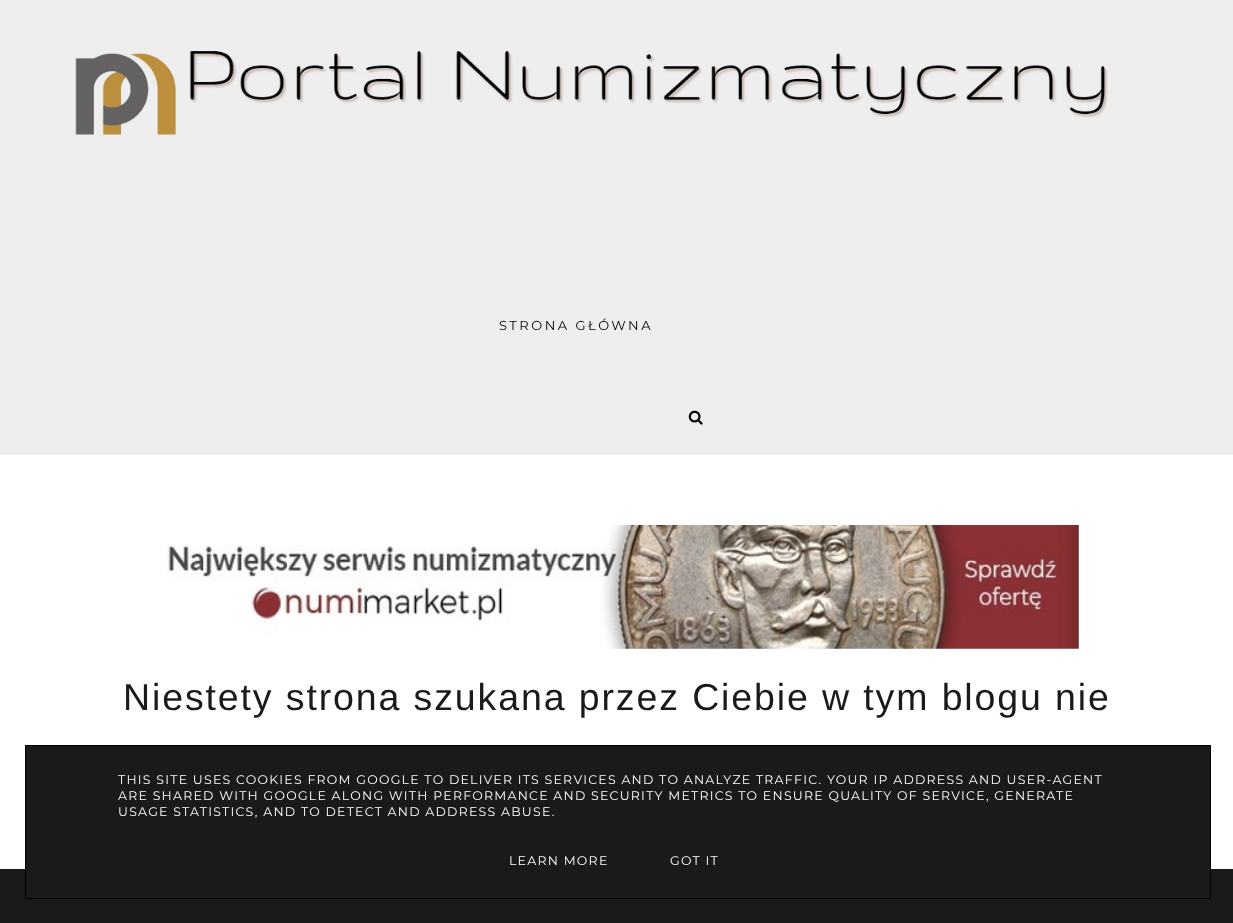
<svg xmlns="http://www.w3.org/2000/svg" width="1233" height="923">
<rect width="100%" height="100%" fill="#fff"/>
<rect width="1233" height="455" fill="#eee"/>
<image x="75" y="50" width="1033" height="89" href="media/1.png"/>
<text x="499" y="330" style="font-family:Montserrat;font-size:13px;font-weight:100;letter-spacing:2.5px;fill:#000">STRONA GŁÓWNA</text>
<image x="688" y="410" width="15" height="15" href="media/2.png"/>
<image x="166" y="525" width="913" height="124" href="media/3.png"/>
<text x="123" y="710" style="font-family:Liberation Sans;font-size:37.5px;letter-spacing:1.88px;fill:#1a1a1a">Niestety strona szukana przez Ciebie w tym blogu nie</text>
<rect x="26" y="746" width="1184" height="123" fill="#1a1a1a"/>
<rect y="869" width="1233" height="54" fill="#1a1a1a"/>
<rect x="25.5" y="745.5" width="1185" height="153" fill="none" stroke="#000"/>
<text x="118" y="784" style="font-family:Montserrat;font-size:12.5px;font-weight:100;letter-spacing:1.25px;fill:#fff">THIS SITE USES COOKIES FROM GOOGLE TO DELIVER ITS SERVICES AND TO ANALYZE TRAFFIC. YOUR IP ADDRESS AND USER-AGENT</text>
<text x="118" y="800" style="font-family:Montserrat;font-size:12.5px;font-weight:100;letter-spacing:1.25px;fill:#fff">ARE SHARED WITH GOOGLE ALONG WITH PERFORMANCE AND SECURITY METRICS TO ENSURE QUALITY OF SERVICE, GENERATE</text>
<text x="118" y="816" style="font-family:Montserrat;font-size:12.5px;font-weight:100;letter-spacing:1.25px;fill:#fff">USAGE STATISTICS, AND TO DETECT AND ADDRESS ABUSE.</text>
<text x="509" y="865" style="font-family:Montserrat;font-size:12.5px;font-weight:100;letter-spacing:1.25px;fill:#fff">LEARN MORE</text>
<text x="670" y="865" style="font-family:Montserrat;font-size:12.5px;font-weight:100;letter-spacing:1.25px;fill:#fff">GOT IT</text>
</svg>
